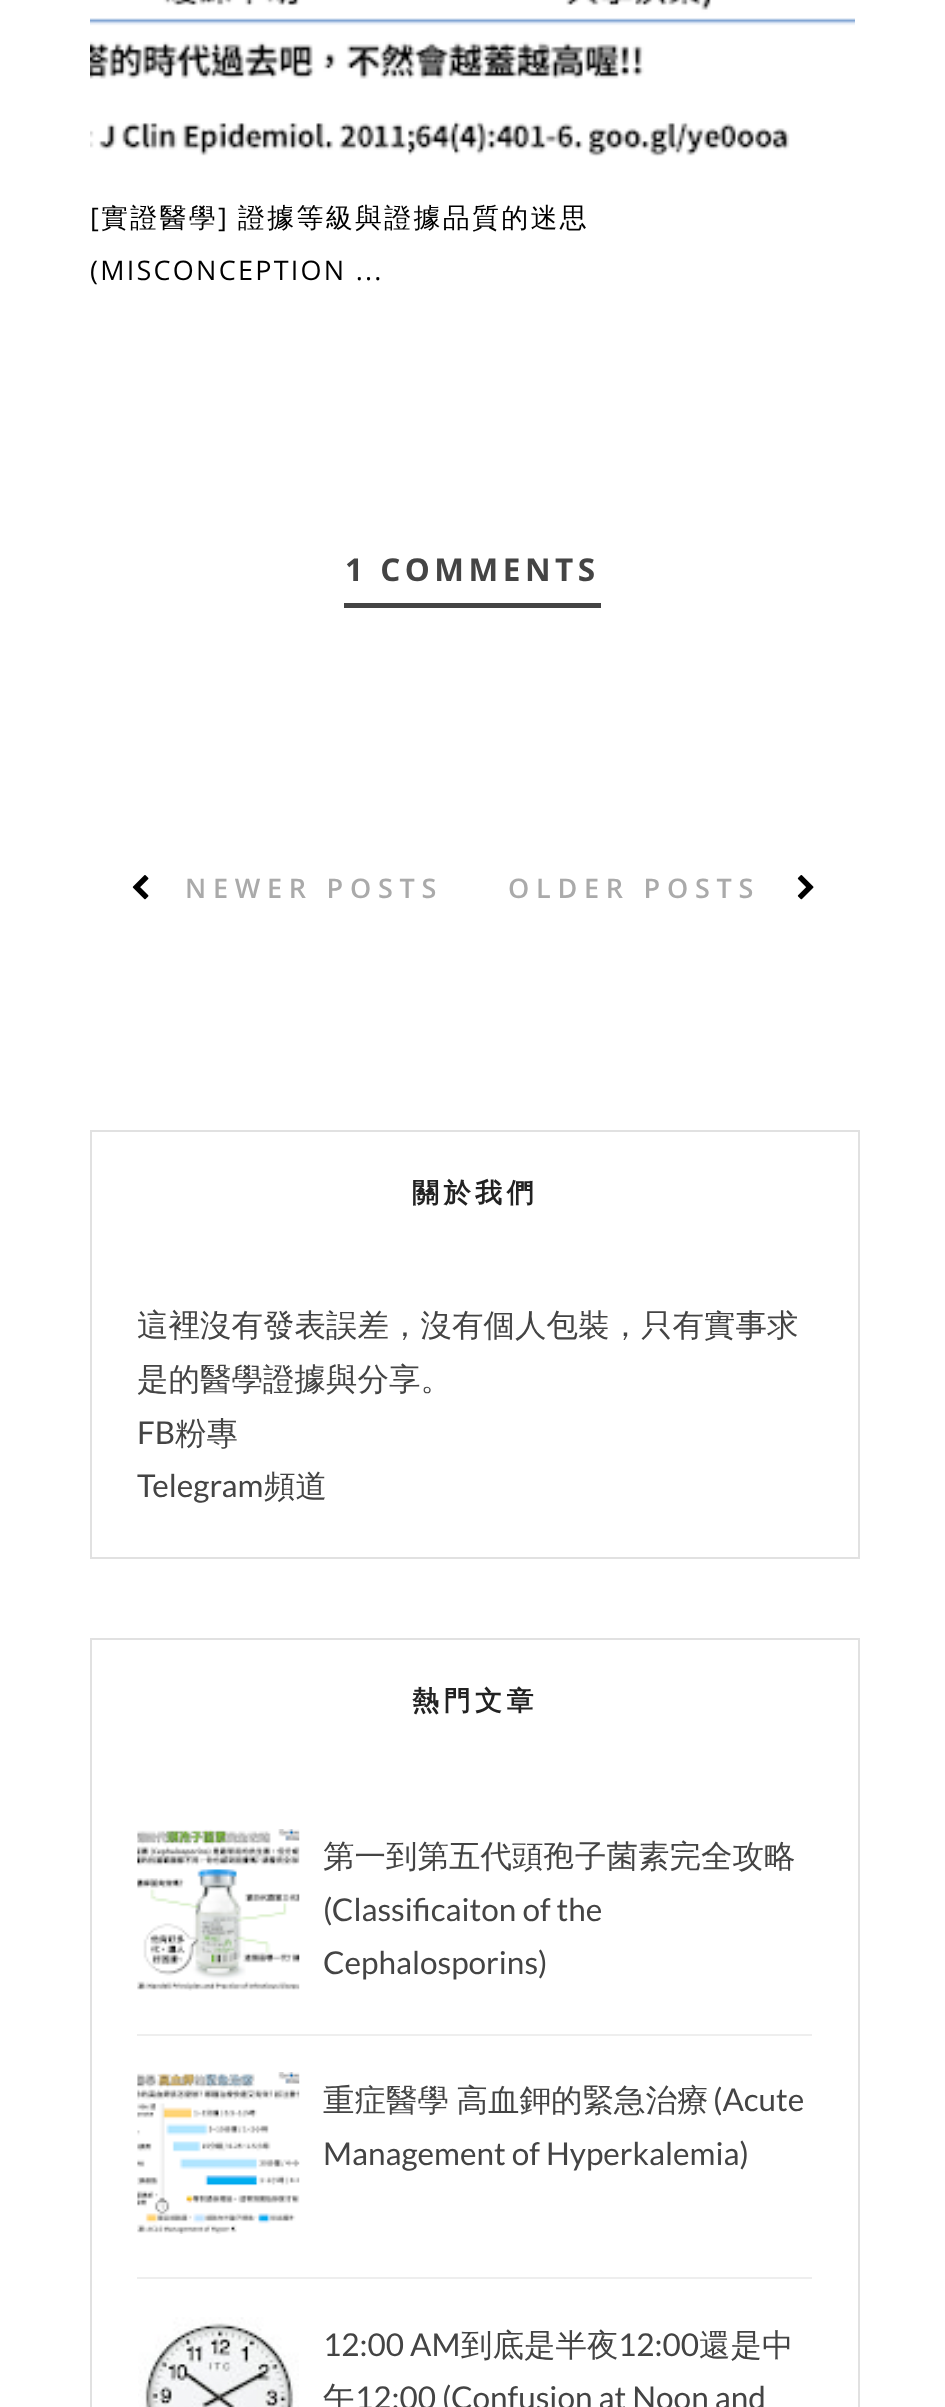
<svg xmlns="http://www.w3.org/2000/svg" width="945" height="2407">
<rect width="100%" height="100%" fill="#fff"/>
<image x="90" y="0" width="765" height="157" href="media/1.png"/>
<text x="90" y="227" style="font-family:Open Sans;font-size:27px;letter-spacing:2.25px;fill:#000">[</text>
<text x="101" y="227" style="font-family:WenQuanYi Zen Hei;font-size:27px;font-weight:500;letter-spacing:2.25px;fill:#000">實證醫學</text>
<text x="218" y="227" style="font-family:Open Sans;font-size:27px;letter-spacing:2.25px;fill:#000">]</text>
<text x="238" y="227" style="font-family:WenQuanYi Zen Hei;font-size:27px;font-weight:500;letter-spacing:2.25px;fill:#000">證據等級與證據品質的迷思</text>
<text x="90" y="280" style="font-family:Open Sans;font-size:27px;letter-spacing:2.25px;fill:#000">(MISCONCEPTION ...</text>
<rect x="344" y="603" width="257" height="5" fill="#444"/>
<text x="345" y="581" style="font-family:Open Sans;font-size:31.5px;font-weight:bold;letter-spacing:4.5px;fill:#444">1 COMMENTS</text>
<image x="132" y="875" width="17" height="25" href="media/2.png"/>
<text x="185" y="898" style="font-family:Open Sans;font-size:27px;font-weight:600;letter-spacing:6.75px;fill:#aaa">NEWER POSTS</text>
<text x="508" y="898" style="font-family:Open Sans;font-size:27px;font-weight:600;letter-spacing:6.75px;fill:#aaa">OLDER POSTS</text>
<image x="797" y="875" width="17" height="25" href="media/3.png"/>
<rect x="91" y="1131" width="768" height="427" fill="none" stroke="#e1e1e1" stroke-width="2"/>
<text x="412" y="1202" style="font-family:WenQuanYi Zen Hei;font-size:27px;font-weight:bold;letter-spacing:4.5px;fill:#222">關於我們</text>
<text x="137" y="1336" style="font-family:WenQuanYi Zen Hei;font-size:31.5px;font-weight:500;fill:#444">這裡沒有發表誤差，沒有個人包裝，只有實事求</text>
<text x="137" y="1390" style="font-family:WenQuanYi Zen Hei;font-size:31.5px;font-weight:500;fill:#444">是的醫學證據與分享。</text>
<text x="137" y="1444" style="font-family:Lato;font-size:31.5px;fill:#444">FB</text>
<text x="175" y="1444" style="font-family:WenQuanYi Zen Hei;font-size:31.5px;font-weight:500;fill:#444">粉專</text>
<text x="137" y="1497" style="font-family:Lato;font-size:31.5px;fill:#444">Telegram</text>
<text x="264" y="1497" style="font-family:WenQuanYi Zen Hei;font-size:31.5px;font-weight:500;fill:#444">頻道</text>
<rect x="91" y="1639" width="768" height="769" fill="none" stroke="#e1e1e1" stroke-width="2"/>
<text x="412" y="1710" style="font-family:WenQuanYi Zen Hei;font-size:27px;font-weight:bold;letter-spacing:4.5px;fill:#222">熱門文章</text>
<rect x="137" y="2034" width="675" height="2" fill="#eee"/>
<image x="137" y="1829" width="163" height="162" href="media/4.png"/>
<text x="323" y="1867" style="font-family:WenQuanYi Zen Hei;font-size:31.5px;font-weight:500;fill:#444">第一到第五代頭孢子菌素完全攻略</text>
<text x="323" y="1921" style="font-family:Lato;font-size:31.5px;fill:#444">(Classificaiton of the</text>
<text x="323" y="1974" style="font-family:Lato;font-size:31.5px;fill:#444">Cephalosporins)</text>
<rect x="137" y="2277" width="675" height="2" fill="#eee"/>
<image x="137" y="2072" width="163" height="162" href="media/5.png"/>
<text x="323" y="2111" word-spacing="-2" style="font-family:WenQuanYi Zen Hei;font-size:31.5px;font-weight:500;fill:#444">重症醫學 高血鉀的緊急治療</text>
<text x="713" y="2111" style="font-family:Lato;font-size:31.5px;fill:#444">(Acute</text>
<text x="323" y="2165" style="font-family:Lato;font-size:31.5px;fill:#444">Management of Hyperkalemia)</text>
<image x="138" y="2317" width="161" height="90" href="media/6.png"/>
<text x="323" y="2356" style="font-family:Lato;font-size:31.5px;fill:#444">12:00 AM</text>
<text x="461" y="2356" style="font-family:WenQuanYi Zen Hei;font-size:31.5px;font-weight:500;fill:#444">到底是半夜</text>
<text x="618" y="2356" style="font-family:Lato;font-size:31.5px;fill:#444">12:00</text>
<text x="699" y="2356" style="font-family:WenQuanYi Zen Hei;font-size:31.5px;font-weight:500;fill:#444">還是中</text>
<text x="323" y="2409" style="font-family:WenQuanYi Zen Hei;font-size:31.5px;font-weight:500;fill:#444">午</text>
<text x="355" y="2409" style="font-family:Lato;font-size:31.5px;fill:#444">12:00 (Confusion at Noon and</text>
</svg>
